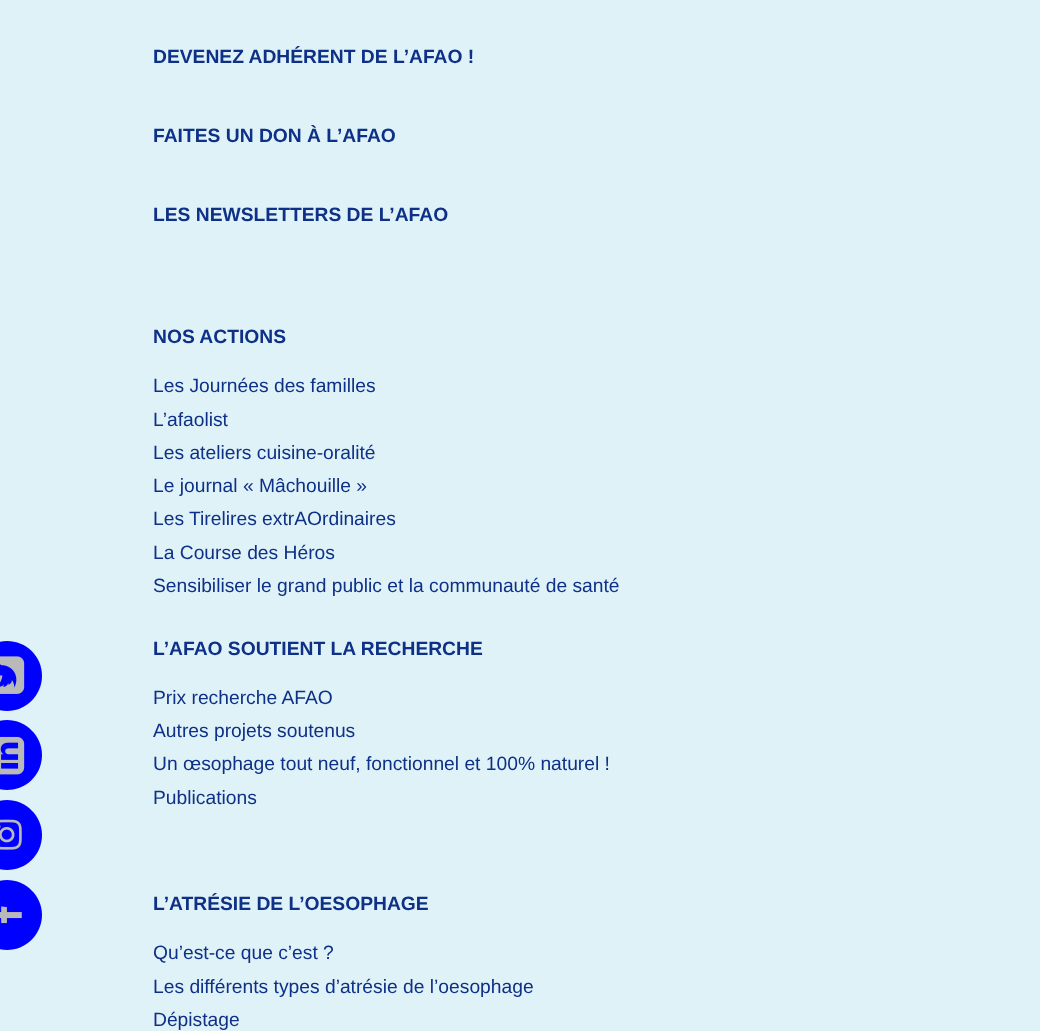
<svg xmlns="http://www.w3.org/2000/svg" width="1040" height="1031">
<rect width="100%" height="100%" fill="#dff2f8"/>
<path d="M-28 676c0-20 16-35 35-35c19 0 35 15 35 35c0 19-16 35-35 35c-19 0-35-16-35-35z" fill="#00f"/>
<image x="0" y="656" width="25" height="38" href="media/1.png"/>
<path d="M-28 755c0-19 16-35 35-35c19 0 35 16 35 35c0 20-16 35-35 35c-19 0-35-15-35-35z" fill="#00f"/>
<image x="0" y="736" width="25" height="39" href="media/2.png"/>
<path d="M-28 835c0-19 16-35 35-35c19 0 35 16 35 35c0 20-16 35-35 35c-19 0-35-15-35-35z" fill="#00f"/>
<image x="0" y="819" width="22" height="31" href="media/3.png"/>
<path d="M-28 915c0-19 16-35 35-35c19 0 35 16 35 35c0 19-16 35-35 35c-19 0-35-16-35-35z" fill="#00f"/>
<image x="0" y="906" width="22" height="18" href="media/4.png"/>
<text x="153" y="63" style="font-family:Liberation Sans;font-size:19.25px;font-weight:bold;fill:#0e3087">DEVENEZ ADHÉRENT DE L’AFAO !</text>
<text x="153" y="142" style="font-family:Liberation Sans;font-size:19.25px;font-weight:bold;fill:#0e3087">FAITES UN DON À L’AFAO</text>
<text x="153" y="221" style="font-family:Liberation Sans;font-size:19.25px;font-weight:bold;fill:#0e3087">LES NEWSLETTERS DE L’AFAO</text>
<text x="153" y="343" style="font-family:Liberation Sans;font-size:19.25px;font-weight:bold;fill:#0e3087">NOS ACTIONS</text>
<text x="153" y="392" style="font-family:Liberation Sans;font-size:19.25px;fill:#0e3087">Les Journées des familles</text>
<text x="153" y="426" style="font-family:Liberation Sans;font-size:19.25px;fill:#0e3087">L’afaolist</text>
<text x="153" y="459" style="font-family:Liberation Sans;font-size:19.25px;fill:#0e3087">Les ateliers cuisine-oralité</text>
<text x="153" y="492" style="font-family:Liberation Sans;font-size:19.25px;fill:#0e3087">Le journal « Mâchouille »</text>
<text x="153" y="525" style="font-family:Liberation Sans;font-size:19.25px;fill:#0e3087">Les Tirelires extrAOrdinaires</text>
<text x="153" y="559" style="font-family:Liberation Sans;font-size:19.25px;fill:#0e3087">La Course des Héros</text>
<text x="153" y="592" style="font-family:Liberation Sans;font-size:19.25px;fill:#0e3087">Sensibiliser le grand public et la communauté de santé</text>
<text x="153" y="655" style="font-family:Liberation Sans;font-size:19.25px;font-weight:bold;fill:#0e3087">L’AFAO SOUTIENT LA RECHERCHE</text>
<text x="153" y="704" style="font-family:Liberation Sans;font-size:19.25px;fill:#0e3087">Prix recherche AFAO</text>
<text x="153" y="737" style="font-family:Liberation Sans;font-size:19.25px;fill:#0e3087">Autres projets soutenus</text>
<text x="153" y="770" style="font-family:Liberation Sans;font-size:19.25px;fill:#0e3087">Un œsophage tout neuf, fonctionnel et 100% naturel !</text>
<text x="153" y="804" style="font-family:Liberation Sans;font-size:19.25px;fill:#0e3087">Publications</text>
<text x="153" y="910" style="font-family:Liberation Sans;font-size:19.25px;font-weight:bold;fill:#0e3087">L’ATRÉSIE DE L’OESOPHAGE</text>
<text x="153" y="959" style="font-family:Liberation Sans;font-size:19.25px;fill:#0e3087">Qu’est-ce que c’est ?</text>
<text x="153" y="993" style="font-family:Liberation Sans;font-size:19.25px;fill:#0e3087">Les différents types d’atrésie de l’oesophage</text>
<text x="153" y="1026" style="font-family:Liberation Sans;font-size:19.25px;fill:#0e3087">Dépistage</text>
</svg>
